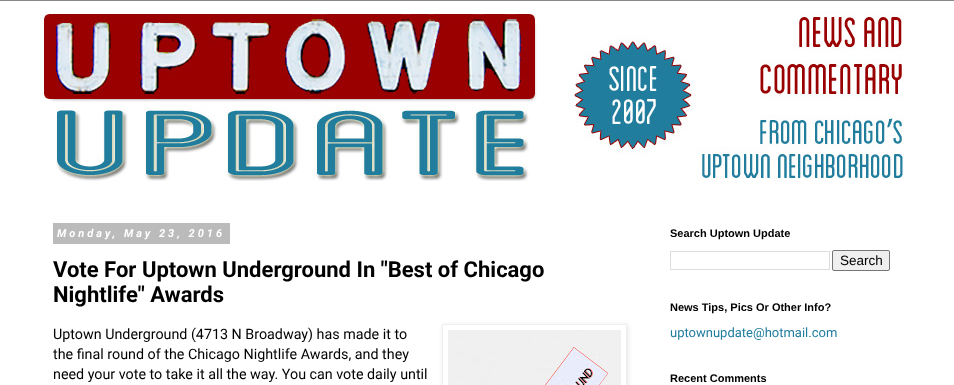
<svg xmlns="http://www.w3.org/2000/svg" width="954" height="385">
<defs>
<clipPath id="clip1"><path d="M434 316h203v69h-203zm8 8h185v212h-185z" clip-rule="evenodd"/></clipPath>
</defs>
<rect width="100%" height="100%" fill="#fff"/>
<rect width="954" height="1" fill="#888"/>
<image x="40" y="11" width="864" height="170" href="media/1.png"/>
<rect x="53" y="223" width="177" height="21" fill="#bbb"/>
<text x="57" y="237" style="font-family:Roboto;font-size:11px;font-weight:bold;font-style:italic;letter-spacing:3px;fill:#fff">Monday, May 23, 2016</text>
<text x="53" y="277" style="font-family:Roboto;font-size:22px;font-weight:bold;fill:#000">Vote For Uptown Underground In "Best of Chicago</text>
<text x="53" y="302" style="font-family:Roboto;font-size:22px;font-weight:bold;fill:#000">Nightlife" Awards</text>
<text x="53" y="339" style="font-family:Roboto;font-size:14.3px;fill:#000">Uptown Underground (4713 N Broadway) has made it to</text>
<g clip-path="url(#clip1)">
<rect x="443" y="325" width="185" height="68" fill="#0000001a" filter="blur(2.5px)"/>
</g>
<rect x="442.5" y="324.5" width="184" height="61" fill="none" stroke="#eee"/>
<image x="448" y="330" width="173" height="55" href="media/2.png"/>
<text x="53" y="359" style="font-family:Roboto;font-size:14.3px;fill:#000">the final round of the Chicago Nightlife Awards, and they</text>
<text x="53" y="379" style="font-family:Roboto;font-size:14.3px;fill:#000">need your vote to take it all the way. You can vote daily until</text>
<text x="670" y="237" style="font-family:Liberation Sans;font-size:11px;font-weight:bold;fill:#000">Search Uptown Update</text>
<rect x="670.5" y="251.5" width="159" height="18" fill="none" stroke="#ddd"/>
<rect x="832.5" y="250.5" width="57" height="20" rx="1.5" fill="#efefef" stroke="#767676"/>
<text x="840" y="265" style="font-family:Liberation Sans;font-size:13.5px;fill:#000">Search</text>
<text x="670" y="311" style="font-family:Liberation Sans;font-size:11px;font-weight:bold;fill:#000">News Tips, Pics Or Other Info?</text>
<text x="670" y="337" style="font-family:Roboto;font-size:13px;fill:#217d9d">uptownupdate@hotmail.com</text>
<text x="670" y="382" style="font-family:Liberation Sans;font-size:11px;font-weight:bold;fill:#000">Recent Comments</text>
</svg>
